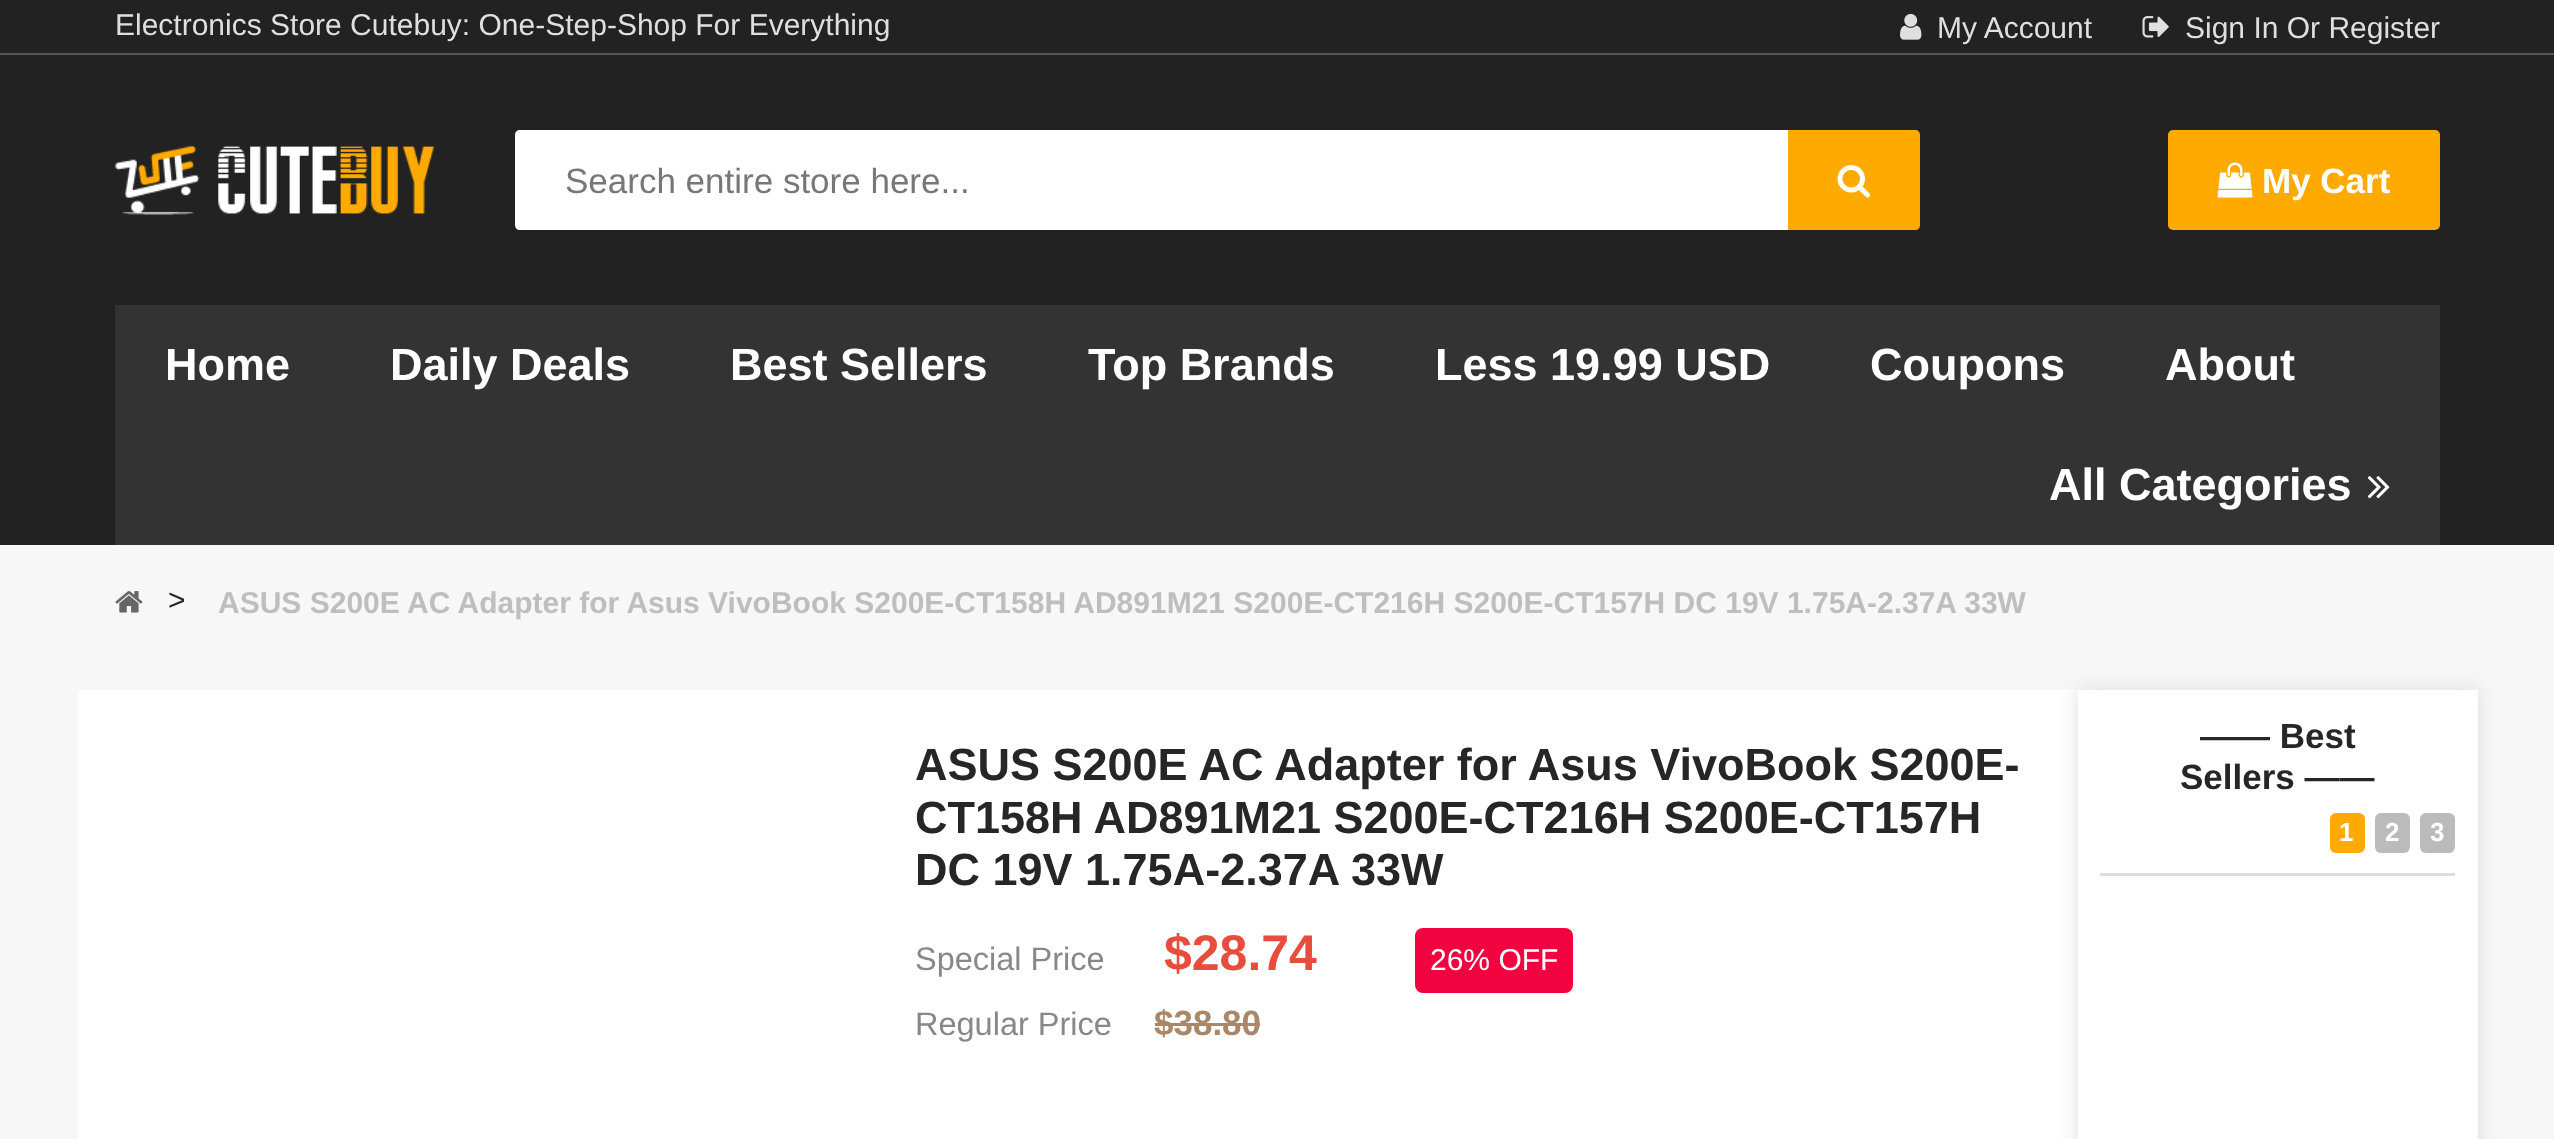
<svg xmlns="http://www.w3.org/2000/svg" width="2554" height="1139">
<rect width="100%" height="100%" fill="#f7f7f7"/>
<rect width="2554" height="53" fill="#222"/>
<rect y="53" width="2554" height="2" fill="#555"/>
<text x="115" y="35" style="font-family:Liberation Sans;font-size:30px;fill:#dfdfdf">Electronics Store Cutebuy: One-Step-Shop For Everything</text>
<image x="1900" y="13" width="22" height="27" href="media/1.png"/>
<text x="1937" y="38" style="font-family:Liberation Sans;font-size:30px;fill:#dfdfdf">My Account</text>
<image x="2142" y="16" width="27" height="22" href="media/2.png"/>
<text x="2185" y="38" style="font-family:Liberation Sans;font-size:30px;fill:#dfdfdf">Sign In Or Register</text>
<rect y="55" width="2554" height="490" fill="#222"/>
<image x="115" y="145" width="320" height="70" href="media/3.png"/>
<path d="M520 130h1268v100h-1268c-3 0-5-2-5-5v-90c0-3 2-5 5-5z" fill="#fff"/>
<text x="565" y="193" style="font-family:Liberation Sans;font-size:35px;fill:#777">Search entire store here...</text>
<path d="M1788 130h127c3 0 5 2 5 5v90c0 3-2 5-5 5h-127z" fill="#fa0"/>
<image x="1837" y="165" width="33" height="33" href="media/4.png"/>
<rect x="2168" y="130" width="272" height="100" rx="5" fill="#fa0"/>
<image x="2217" y="162" width="36" height="36" href="media/5.png"/>
<text x="2262" y="193" style="font-family:Liberation Sans;font-size:35px;font-weight:bold;fill:#fff">My Cart</text>
<rect x="115" y="305" width="2325" height="240" fill="#333"/>
<text x="165" y="380" style="font-family:Liberation Sans;font-size:45px;font-weight:bold;fill:#fff">Home</text>
<text x="390" y="380" style="font-family:Liberation Sans;font-size:45px;font-weight:bold;fill:#fff">Daily Deals</text>
<text x="730" y="380" style="font-family:Liberation Sans;font-size:45px;font-weight:bold;fill:#fff">Best Sellers</text>
<text x="1088" y="380" style="font-family:Liberation Sans;font-size:45px;font-weight:bold;fill:#fff">Top Brands</text>
<text x="1435" y="380" style="font-family:Liberation Sans;font-size:45px;font-weight:bold;fill:#fff">Less 19.99 USD</text>
<text x="1870" y="380" style="font-family:Liberation Sans;font-size:45px;font-weight:bold;fill:#fff">Coupons</text>
<text x="2165" y="380" style="font-family:Liberation Sans;font-size:45px;font-weight:bold;fill:#fff">About</text>
<text x="2049" y="500" style="font-family:Liberation Sans;font-size:45px;font-weight:bold;fill:#fff">All Categories</text>
<image x="2367" y="476" width="23" height="23" href="media/6.png"/>
<image x="115" y="591" width="28" height="22" href="media/7.png"/>
<text x="168" y="610" style="font-family:Liberation Sans;font-size:30px;fill:#262626">&gt;</text>
<text x="218" y="613" style="font-family:Liberation Sans;font-size:30px;font-weight:bold;fill:#bebebe">ASUS S200E AC Adapter for Asus VivoBook S200E-CT158H AD891M21 S200E-CT216H S200E-CT157H DC 19V 1.75A-2.37A 33W</text>
<rect x="78" y="690" width="2000" height="449" fill="#fff"/>
<rect x="2078" y="690" width="400" height="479" fill="#ddd" filter="blur(10px)"/>
<rect x="2078" y="690" width="400" height="449" fill="#fff"/>
<rect x="2100" y="873" width="355" height="3" fill="#ddd"/>
<text x="2200" y="748" style="font-family:Liberation Sans;font-size:35px;font-weight:bold;fill:#262626">—— Best</text>
<text x="2180" y="789" style="font-family:Liberation Sans;font-size:35px;font-weight:bold;fill:#262626">Sellers ——</text>
<rect x="2330" y="813" width="35" height="40" rx="6" fill="#fa0"/>
<text x="2339" y="841" style="font-family:Liberation Sans;font-size:26px;font-weight:bold;fill:#fff">1</text>
<rect x="2375" y="813" width="35" height="40" rx="6" fill="#bbb"/>
<text x="2385" y="841" style="font-family:Liberation Sans;font-size:26px;font-weight:bold;fill:#fff">2</text>
<rect x="2420" y="813" width="35" height="40" rx="6" fill="#bbb"/>
<text x="2430" y="841" style="font-family:Liberation Sans;font-size:26px;font-weight:bold;fill:#fff">3</text>
<text x="915" y="780" style="font-family:Liberation Sans;font-size:45px;font-weight:bold;fill:#262626">ASUS S200E AC Adapter for Asus VivoBook S200E-</text>
<text x="915" y="833" style="font-family:Liberation Sans;font-size:45px;font-weight:bold;fill:#262626">CT158H AD891M21 S200E-CT216H S200E-CT157H</text>
<text x="915" y="885" style="font-family:Liberation Sans;font-size:45px;font-weight:bold;fill:#262626">DC 19V 1.75A-2.37A 33W</text>
<text x="915" y="970" style="font-family:Liberation Sans;font-size:32.5px;fill:#888">Special Price</text>
<text x="1164" y="970" style="font-family:Liberation Sans;font-size:50px;font-weight:bold;fill:#e74c3c">$28.74</text>
<text x="915" y="1035" style="font-family:Liberation Sans;font-size:32.5px;fill:#888">Regular Price</text>
<text x="1154" y="1035" style="font-family:Liberation Sans;font-size:35px;font-weight:bold;fill:#aa8766">$38.80</text>
<rect x="1155" y="1023" width="105" height="3" fill="#aa8766"/>
<rect x="1415" y="928" width="158" height="65" rx="8" fill="#f30240"/>
<text x="1430" y="970" style="font-family:Liberation Sans;font-size:30px;fill:#fff">26% OFF</text>
</svg>
